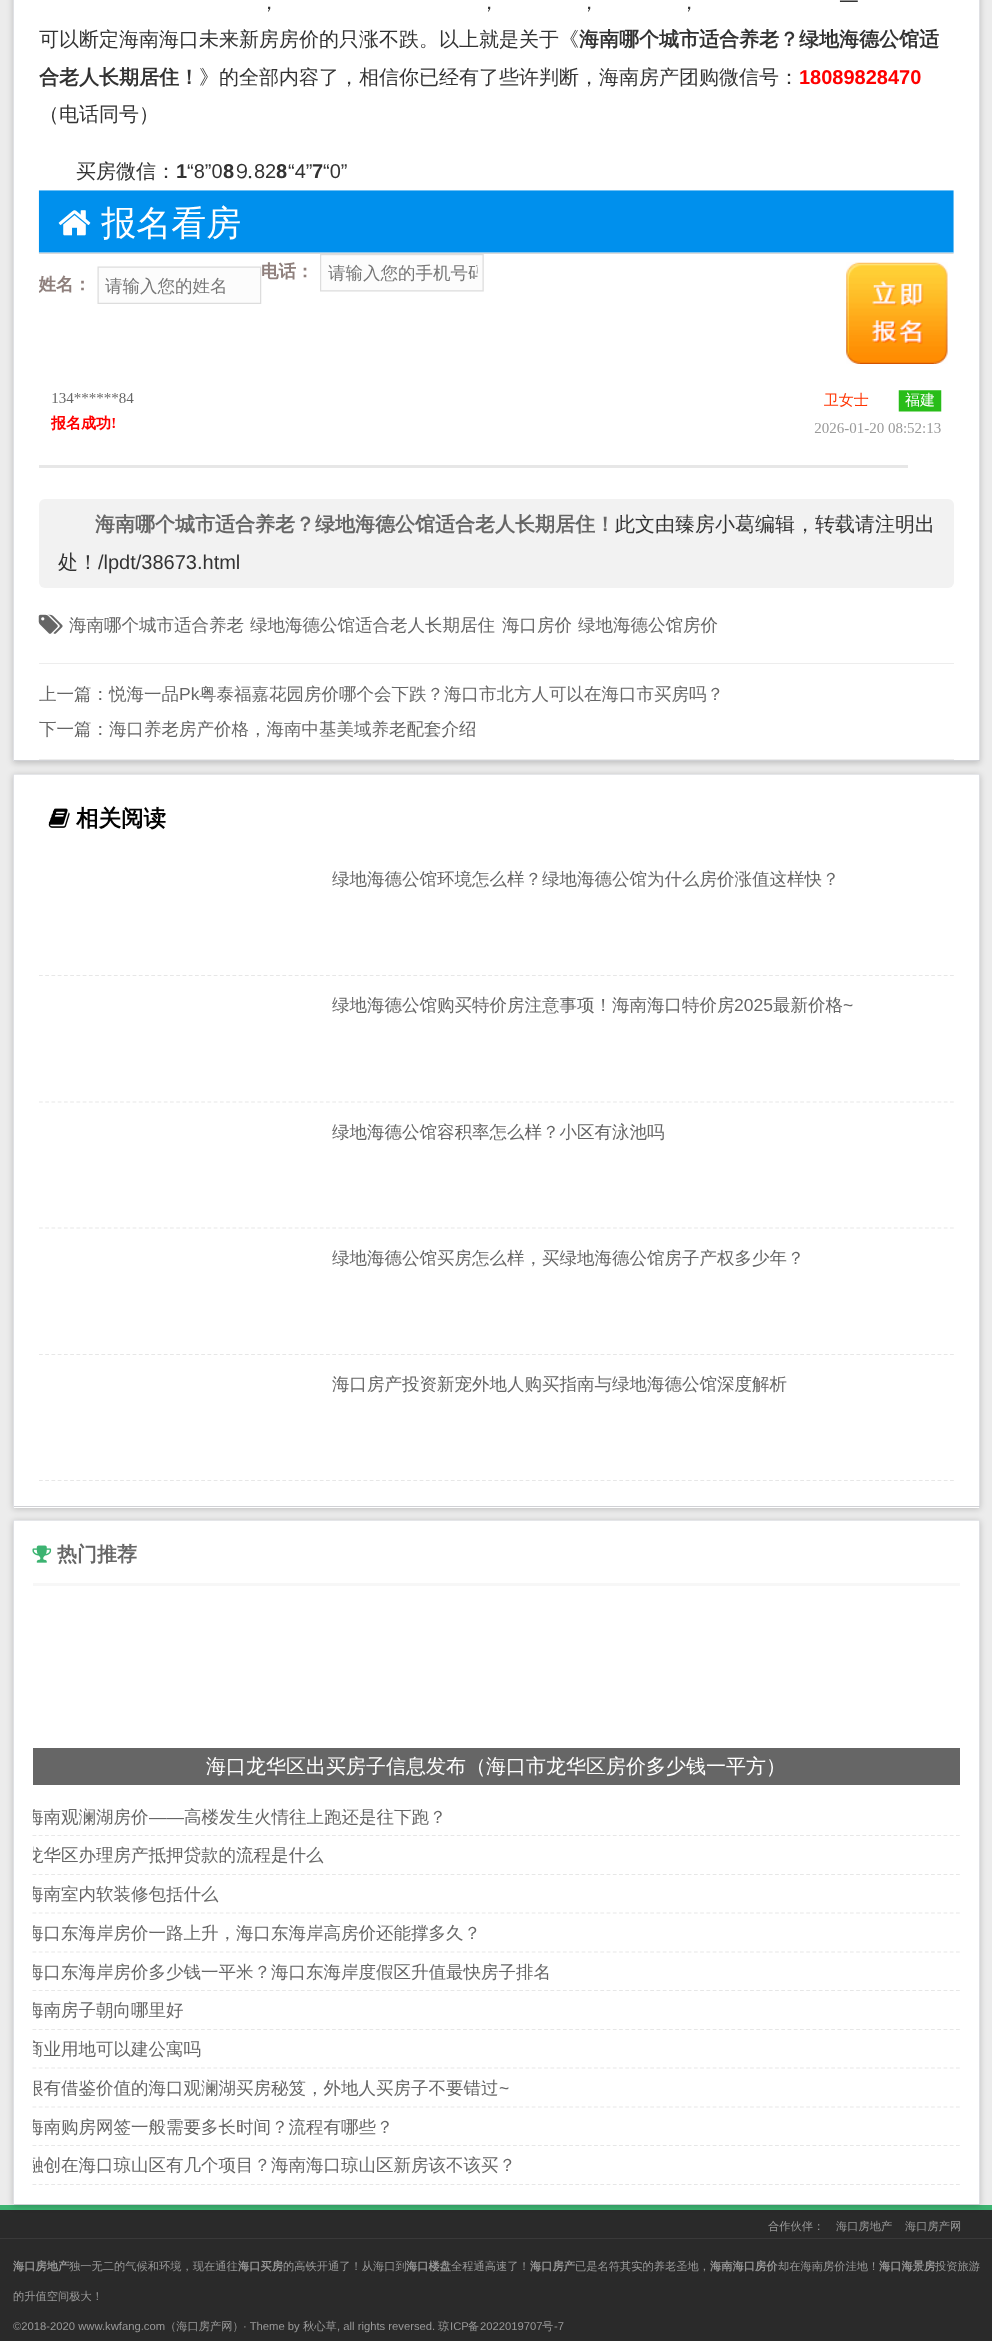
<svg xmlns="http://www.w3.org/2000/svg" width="992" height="2341">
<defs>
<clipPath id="clip1"><rect x="39" y="850" width="915" height="631"/></clipPath>
<clipPath id="clip2"><rect x="33" y="1798" width="927" height="37"/></clipPath>
<clipPath id="clip3"><rect x="33" y="1836" width="927" height="38"/></clipPath>
<clipPath id="clip4"><rect x="33" y="1875" width="927" height="38"/></clipPath>
<clipPath id="clip5"><rect x="33" y="1914" width="927" height="37"/></clipPath>
<clipPath id="clip6"><rect x="33" y="1953" width="927" height="37"/></clipPath>
<clipPath id="clip7"><rect x="33" y="1991" width="927" height="38"/></clipPath>
<clipPath id="clip8"><rect x="33" y="2030" width="927" height="38"/></clipPath>
<clipPath id="clip9"><rect x="33" y="2069" width="927" height="37"/></clipPath>
<clipPath id="clip10"><rect x="33" y="2108" width="927" height="37"/></clipPath>
<clipPath id="clip11"><rect x="33" y="2146" width="927" height="38"/></clipPath>
</defs>
<rect width="100%" height="100%" fill="#ececec"/>
<rect x="13" y="-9" width="967" height="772" fill="#00000033" filter="blur(3px)"/>
<rect x="14" width="965" height="760" fill="#fff"/>
<rect x="979" width="1" height="761" fill="#dfe0e4"/>
<rect x="13" y="760" width="967" height="1" fill="#d0d1d5"/>
<rect x="13" width="1" height="761" fill="#dfe0e4"/>
<text x="839" y="9" style="font-family:WenQuanYi Zen Hei;font-size:20px;font-weight:500;fill:#333">一</text>
<text x="259" y="9" style="font-family:WenQuanYi Zen Hei;font-size:20px;font-weight:500;fill:#333">，</text>
<text x="479" y="9" style="font-family:WenQuanYi Zen Hei;font-size:20px;font-weight:500;fill:#333">，</text>
<text x="579" y="9" style="font-family:WenQuanYi Zen Hei;font-size:20px;font-weight:500;fill:#333">，</text>
<text x="679" y="9" style="font-family:WenQuanYi Zen Hei;font-size:20px;font-weight:500;fill:#333">，</text>
<text x="39" y="46" style="font-family:WenQuanYi Zen Hei;font-size:20px;font-weight:500;fill:#333">可以断定海南海口未来新房房价的只涨不跌。以上就是关于《</text>
<text x="579" y="46" style="font-family:WenQuanYi Zen Hei;font-size:20px;font-weight:bold;fill:#333">海南哪个城市适合养老？绿地海德公馆适</text>
<text x="39" y="84" style="font-family:WenQuanYi Zen Hei;font-size:20px;font-weight:bold;fill:#333">合老人长期居住！</text>
<text x="199" y="84" style="font-family:WenQuanYi Zen Hei;font-size:20px;font-weight:500;fill:#333">》的全部内容了，相信你已经有了些许判断，海南房产团购微信号：</text>
<text x="799" y="84" style="font-family:Liberation Sans;font-size:20px;font-weight:bold;fill:#f00">18089828470</text>
<text x="39" y="121" style="font-family:WenQuanYi Zen Hei;font-size:20px;font-weight:500;fill:#333">（电话同号）</text>
<text x="76" y="178" style="font-family:WenQuanYi Zen Hei;font-size:20px;font-weight:500;fill:#333">买房微信：</text>
<text x="176" y="178" style="font-family:Liberation Sans;font-size:20px;font-weight:bold;fill:#333">1</text>
<text x="187" y="178" style="font-family:Liberation Sans;font-size:20px;fill:#333">“8”0</text>
<text x="223" y="178" style="font-family:Liberation Sans;font-size:20px;font-weight:bold;fill:#333">8</text>
<text x="234" y="178" style="font-family:WenQuanYi Zen Hei;font-size:20px;font-weight:500;fill:#333">⒐</text>
<text x="254" y="178" style="font-family:Liberation Sans;font-size:20px;fill:#333">82</text>
<text x="276" y="178" style="font-family:Liberation Sans;font-size:20px;font-weight:bold;fill:#333">8</text>
<text x="288" y="178" style="font-family:Liberation Sans;font-size:20px;fill:#333">“4”</text>
<text x="312" y="178" style="font-family:Liberation Sans;font-size:20px;font-weight:bold;fill:#333">7</text>
<text x="323" y="178" style="font-family:Liberation Sans;font-size:20px;fill:#333">“0”</text>
<image x="38" y="190" width="916" height="243" href="media/1.png"/>
<rect x="39" y="465" width="869" height="3" fill="#e7e7e7"/>
<rect x="39" y="499" width="915" height="89" rx="6" fill="#f2f2f2"/>
<text x="95" y="531" style="font-family:WenQuanYi Zen Hei;font-size:20px;font-weight:bold;fill:#666">海南哪个城市适合养老？绿地海德公馆适合老人长期居住！</text>
<text x="615" y="531" style="font-family:WenQuanYi Zen Hei;font-size:20px;font-weight:500;fill:#333">此文由臻房小葛编辑，转载请注明出</text>
<text x="58" y="569" style="font-family:WenQuanYi Zen Hei;font-size:20px;font-weight:500;fill:#333">处！</text>
<text x="98" y="569" style="font-family:Liberation Sans;font-size:20px;fill:#333">/lpdt/38673.html</text>
<image x="38" y="614" width="25" height="20" href="media/2.png"/>
<text x="69" y="631" style="font-family:WenQuanYi Zen Hei;font-size:17.5px;font-weight:500;fill:#666">海南哪个城市适合养老</text>
<text x="250" y="631" style="font-family:WenQuanYi Zen Hei;font-size:17.5px;font-weight:500;fill:#666">绿地海德公馆适合老人长期居住</text>
<text x="502" y="631" style="font-family:WenQuanYi Zen Hei;font-size:17.5px;font-weight:500;fill:#666">海口房价</text>
<text x="578" y="631" style="font-family:WenQuanYi Zen Hei;font-size:17.5px;font-weight:500;fill:#666">绿地海德公馆房价</text>
<rect x="39" y="663" width="915" height="1" fill="#ededed"/>
<rect x="39" y="759" width="915" height="1" fill="#ededed"/>
<text x="39" y="700" style="font-family:WenQuanYi Zen Hei;font-size:17.5px;font-weight:500;fill:#666">上一篇：悦海一品</text>
<text x="179" y="700" style="font-family:Liberation Sans;font-size:17.5px;fill:#666">Pk</text>
<text x="199" y="700" style="font-family:WenQuanYi Zen Hei;font-size:17.5px;font-weight:500;fill:#666">粤泰福嘉花园房价哪个会下跌？海口市北方人可以在海口市买房吗？</text>
<text x="39" y="735" style="font-family:WenQuanYi Zen Hei;font-size:17.5px;font-weight:500;fill:#666">下一篇：海口养老房产价格，海南中基美域养老配套介绍</text>
<rect x="13" y="775" width="967" height="734" fill="#00000033" filter="blur(3px)"/>
<rect x="14" y="775" width="965" height="733" fill="#fff"/>
<rect x="13" y="774" width="967" height="1" fill="#e5e6e9"/>
<rect x="979" y="774" width="1" height="734" fill="#dfe0e4"/>
<rect x="13" y="1506" width="967" height="1" fill="#d0d1d5"/>
<rect x="13" y="774" width="1" height="734" fill="#dfe0e4"/>
<image x="48" y="808" width="22" height="20" href="media/3.png"/>
<text x="76" y="826" style="font-family:WenQuanYi Zen Hei;font-size:22.5px;font-weight:bold;fill:#000">相关阅读</text>
<path d="M39 975.5h915" fill="none" stroke="#e7e7e7" stroke-width="1.2" stroke-dasharray="3.75 2.49"/>
<text x="332" y="885" style="font-family:WenQuanYi Zen Hei;font-size:17.5px;font-weight:500;fill:#666">绿地海德公馆环境怎么样？绿地海德公馆为什么房价涨值这样快？</text>
<path d="M39 1102h915" fill="none" stroke="#e7e7e7" stroke-width="1.2" stroke-dasharray="3.75 2.49"/>
<text x="332" y="1011" style="font-family:WenQuanYi Zen Hei;font-size:17.5px;font-weight:500;fill:#666">绿地海德公馆购买特价房注意事项！海南海口特价房</text>
<text x="734" y="1011" style="font-family:Liberation Sans;font-size:17.5px;fill:#666">2025</text>
<text x="773" y="1011" style="font-family:WenQuanYi Zen Hei;font-size:17.5px;font-weight:500;fill:#666">最新价格</text>
<text x="843" y="1011" style="font-family:Liberation Sans;font-size:17.5px;fill:#666">~</text>
<path d="M39 1228h915" fill="none" stroke="#e7e7e7" stroke-width="1.2" stroke-dasharray="3.75 2.49"/>
<text x="332" y="1138" style="font-family:WenQuanYi Zen Hei;font-size:17.5px;font-weight:500;fill:#666">绿地海德公馆容积率怎么样？小区有泳池吗</text>
<path d="M39 1354.5h915" fill="none" stroke="#e7e7e7" stroke-width="1.2" stroke-dasharray="3.75 2.49"/>
<text x="332" y="1264" style="font-family:WenQuanYi Zen Hei;font-size:17.5px;font-weight:500;fill:#666">绿地海德公馆买房怎么样，买绿地海德公馆房子产权多少年？</text>
<g clip-path="url(#clip1)">
<path d="M39 1480.5h915" fill="none" stroke="#e7e7e7" stroke-width="1.2" stroke-dasharray="3.75 2.49"/>
</g>
<text x="332" y="1390" style="font-family:WenQuanYi Zen Hei;font-size:17.5px;font-weight:500;fill:#666">海口房产投资新宠外地人购买指南与绿地海德公馆深度解析</text>
<rect y="2210" width="992" height="131" fill="#2a2a2a"/>
<rect y="2205" width="992" height="5" fill="#3cb371"/>
<rect x="13" y="1521" width="967" height="685" fill="#00000033" filter="blur(3px)"/>
<rect x="14" y="1521" width="965" height="683" fill="#fff"/>
<rect x="13" y="1520" width="967" height="1" fill="#e5e6e9"/>
<rect x="979" y="1520" width="1" height="685" fill="#dfe0e4"/>
<rect x="13" y="2204" width="967" height="1" fill="#d0d1d5"/>
<rect x="13" y="1520" width="1" height="685" fill="#dfe0e4"/>
<rect x="33" y="1583" width="927" height="3" fill="#f7f7f7"/>
<image x="32" y="1545" width="20" height="18" href="media/4.png"/>
<text x="57" y="1561" style="font-family:WenQuanYi Zen Hei;font-size:20px;font-weight:bold;fill:#666">热门推荐</text>
<rect x="33" y="1748" width="927" height="37" fill="#666"/>
<text x="206" y="1773" style="font-family:WenQuanYi Zen Hei;font-size:20px;font-weight:500;fill:#fff">海口龙华区出买房子信息发布（海口市龙华区房价多少钱一平方）</text>
<path d="M32.5 1835.5h927.5" fill="none" stroke="#e7e7e7" stroke-width="1.2" stroke-dasharray="3.75 2.49"/>
<g clip-path="url(#clip2)">
<text x="26" y="1823" style="font-family:WenQuanYi Zen Hei;font-size:17.5px;font-weight:500;fill:#666">海南观澜湖房价</text>
</g>
<text x="149" y="1823" style="font-family:Liberation Sans;font-size:17.5px;fill:#666">——</text>
<text x="184" y="1823" style="font-family:WenQuanYi Zen Hei;font-size:17.5px;font-weight:500;fill:#666">高楼发生火情往上跑还是往下跑？</text>
<path d="M32.5 1874.5h927.5" fill="none" stroke="#e7e7e7" stroke-width="1.2" stroke-dasharray="3.75 2.49"/>
<g clip-path="url(#clip3)">
<text x="26" y="1861" style="font-family:WenQuanYi Zen Hei;font-size:17.5px;font-weight:500;fill:#666">龙华区办理房产抵押贷款的流程是什么</text>
</g>
<path d="M32.5 1913h927.5" fill="none" stroke="#e7e7e7" stroke-width="1.2" stroke-dasharray="3.75 2.49"/>
<g clip-path="url(#clip4)">
<text x="26" y="1900" style="font-family:WenQuanYi Zen Hei;font-size:17.5px;font-weight:500;fill:#666">海南室内软装修包括什么</text>
</g>
<path d="M32.5 1952h927.5" fill="none" stroke="#e7e7e7" stroke-width="1.2" stroke-dasharray="3.75 2.49"/>
<g clip-path="url(#clip5)">
<text x="26" y="1939" style="font-family:WenQuanYi Zen Hei;font-size:17.5px;font-weight:500;fill:#666">海口东海岸房价一路上升，海口东海岸高房价还能撑多久？</text>
</g>
<path d="M32.5 1990.5h927.5" fill="none" stroke="#e7e7e7" stroke-width="1.2" stroke-dasharray="3.75 2.49"/>
<g clip-path="url(#clip6)">
<text x="26" y="1978" style="font-family:WenQuanYi Zen Hei;font-size:17.5px;font-weight:500;fill:#666">海口东海岸房价多少钱一平米？海口东海岸度假区升值最快房子排名</text>
</g>
<path d="M32.5 2029.5h927.5" fill="none" stroke="#e7e7e7" stroke-width="1.2" stroke-dasharray="3.75 2.49"/>
<g clip-path="url(#clip7)">
<text x="26" y="2016" style="font-family:WenQuanYi Zen Hei;font-size:17.5px;font-weight:500;fill:#666">海南房子朝向哪里好</text>
</g>
<path d="M32.5 2068h927.5" fill="none" stroke="#e7e7e7" stroke-width="1.2" stroke-dasharray="3.75 2.49"/>
<g clip-path="url(#clip8)">
<text x="26" y="2055" style="font-family:WenQuanYi Zen Hei;font-size:17.5px;font-weight:500;fill:#666">商业用地可以建公寓吗</text>
</g>
<path d="M32.5 2107h927.5" fill="none" stroke="#e7e7e7" stroke-width="1.2" stroke-dasharray="3.75 2.49"/>
<g clip-path="url(#clip9)">
<text x="26" y="2094" style="font-family:WenQuanYi Zen Hei;font-size:17.5px;font-weight:500;fill:#666">很有借鉴价值的海口观澜湖买房秘笈，外地人买房子不要错过</text>
</g>
<text x="499" y="2094" style="font-family:Liberation Sans;font-size:17.5px;fill:#666">~</text>
<path d="M32.5 2145.5h927.5" fill="none" stroke="#e7e7e7" stroke-width="1.2" stroke-dasharray="3.75 2.49"/>
<g clip-path="url(#clip10)">
<text x="26" y="2133" style="font-family:WenQuanYi Zen Hei;font-size:17.5px;font-weight:500;fill:#666">海南购房网签一般需要多长时间？流程有哪些？</text>
</g>
<path d="M32.5 2184.5h927.5" fill="none" stroke="#e7e7e7" stroke-width="1.2" stroke-dasharray="3.75 2.49"/>
<g clip-path="url(#clip11)">
<text x="26" y="2171" style="font-family:WenQuanYi Zen Hei;font-size:17.5px;font-weight:500;fill:#666">融创在海口琼山区有几个项目？海南海口琼山区新房该不该买？</text>
</g>
<text x="768" y="2230" style="font-family:WenQuanYi Zen Hei;font-size:11.25px;font-weight:500;fill:#999">合作伙伴：</text>
<text x="836" y="2230" style="font-family:WenQuanYi Zen Hei;font-size:11.25px;font-weight:500;fill:#999">海口房地产</text>
<text x="905" y="2230" style="font-family:WenQuanYi Zen Hei;font-size:11.25px;font-weight:500;fill:#999">海口房产网</text>
<rect y="2238" width="992" height="1" fill="#393939"/>
<text x="13" y="2270" style="font-family:WenQuanYi Zen Hei;font-size:11.25px;font-weight:bold;fill:#999">海口房地产</text>
<text x="69" y="2270" style="font-family:WenQuanYi Zen Hei;font-size:11.25px;font-weight:500;fill:#999">独一无二的气候和环境，现在通往</text>
<text x="238" y="2270" style="font-family:WenQuanYi Zen Hei;font-size:11.25px;font-weight:bold;fill:#999">海口买房</text>
<text x="283" y="2270" style="font-family:WenQuanYi Zen Hei;font-size:11.25px;font-weight:500;fill:#999">的高铁开通了！从海口到</text>
<text x="406" y="2270" style="font-family:WenQuanYi Zen Hei;font-size:11.25px;font-weight:bold;fill:#999">海口楼盘</text>
<text x="451" y="2270" style="font-family:WenQuanYi Zen Hei;font-size:11.25px;font-weight:500;fill:#999">全程通高速了！</text>
<text x="530" y="2270" style="font-family:WenQuanYi Zen Hei;font-size:11.25px;font-weight:bold;fill:#999">海口房产</text>
<text x="575" y="2270" style="font-family:WenQuanYi Zen Hei;font-size:11.25px;font-weight:500;fill:#999">已是名符其实的养老圣地，</text>
<text x="710" y="2270" style="font-family:WenQuanYi Zen Hei;font-size:11.25px;font-weight:bold;fill:#999">海南海口房价</text>
<text x="778" y="2270" style="font-family:WenQuanYi Zen Hei;font-size:11.25px;font-weight:500;fill:#999">却在海南房价洼地！</text>
<text x="879" y="2270" style="font-family:WenQuanYi Zen Hei;font-size:11.25px;font-weight:bold;fill:#999">海口海景房</text>
<text x="935" y="2270" style="font-family:WenQuanYi Zen Hei;font-size:11.25px;font-weight:500;fill:#999">投资旅游</text>
<text x="13" y="2300" style="font-family:WenQuanYi Zen Hei;font-size:11.25px;font-weight:500;fill:#999">的升值空间极大！</text>
<text x="13" y="2330" style="font-family:Liberation Sans;font-size:11.25px;fill:#999">©2018-2020 www.kwfang.com</text>
<text x="165" y="2330" style="font-family:WenQuanYi Zen Hei;font-size:11.25px;font-weight:500;fill:#999">（海口房产网）</text>
<text x="243" y="2330" style="font-family:Liberation Sans;font-size:11.25px;fill:#999">· Theme by</text>
<text x="303" y="2330" style="font-family:WenQuanYi Zen Hei;font-size:11.25px;font-weight:500;fill:#999">秋心草</text>
<text x="337" y="2330" style="font-family:Liberation Sans;font-size:11.25px;fill:#999">, all rights reversed.</text>
<text x="438" y="2330" style="font-family:WenQuanYi Zen Hei;font-size:11.25px;font-weight:500;fill:#999">琼</text>
<text x="450" y="2330" style="font-family:Liberation Sans;font-size:11.25px;fill:#999">ICP</text>
<text x="468" y="2330" style="font-family:WenQuanYi Zen Hei;font-size:11.25px;font-weight:500;fill:#999">备</text>
<text x="480" y="2330" style="font-family:Liberation Sans;font-size:11.25px;fill:#999">2022019707</text>
<text x="542" y="2330" style="font-family:WenQuanYi Zen Hei;font-size:11.25px;font-weight:500;fill:#999">号</text>
<text x="554" y="2330" style="font-family:Liberation Sans;font-size:11.25px;fill:#999">-7</text>
</svg>
